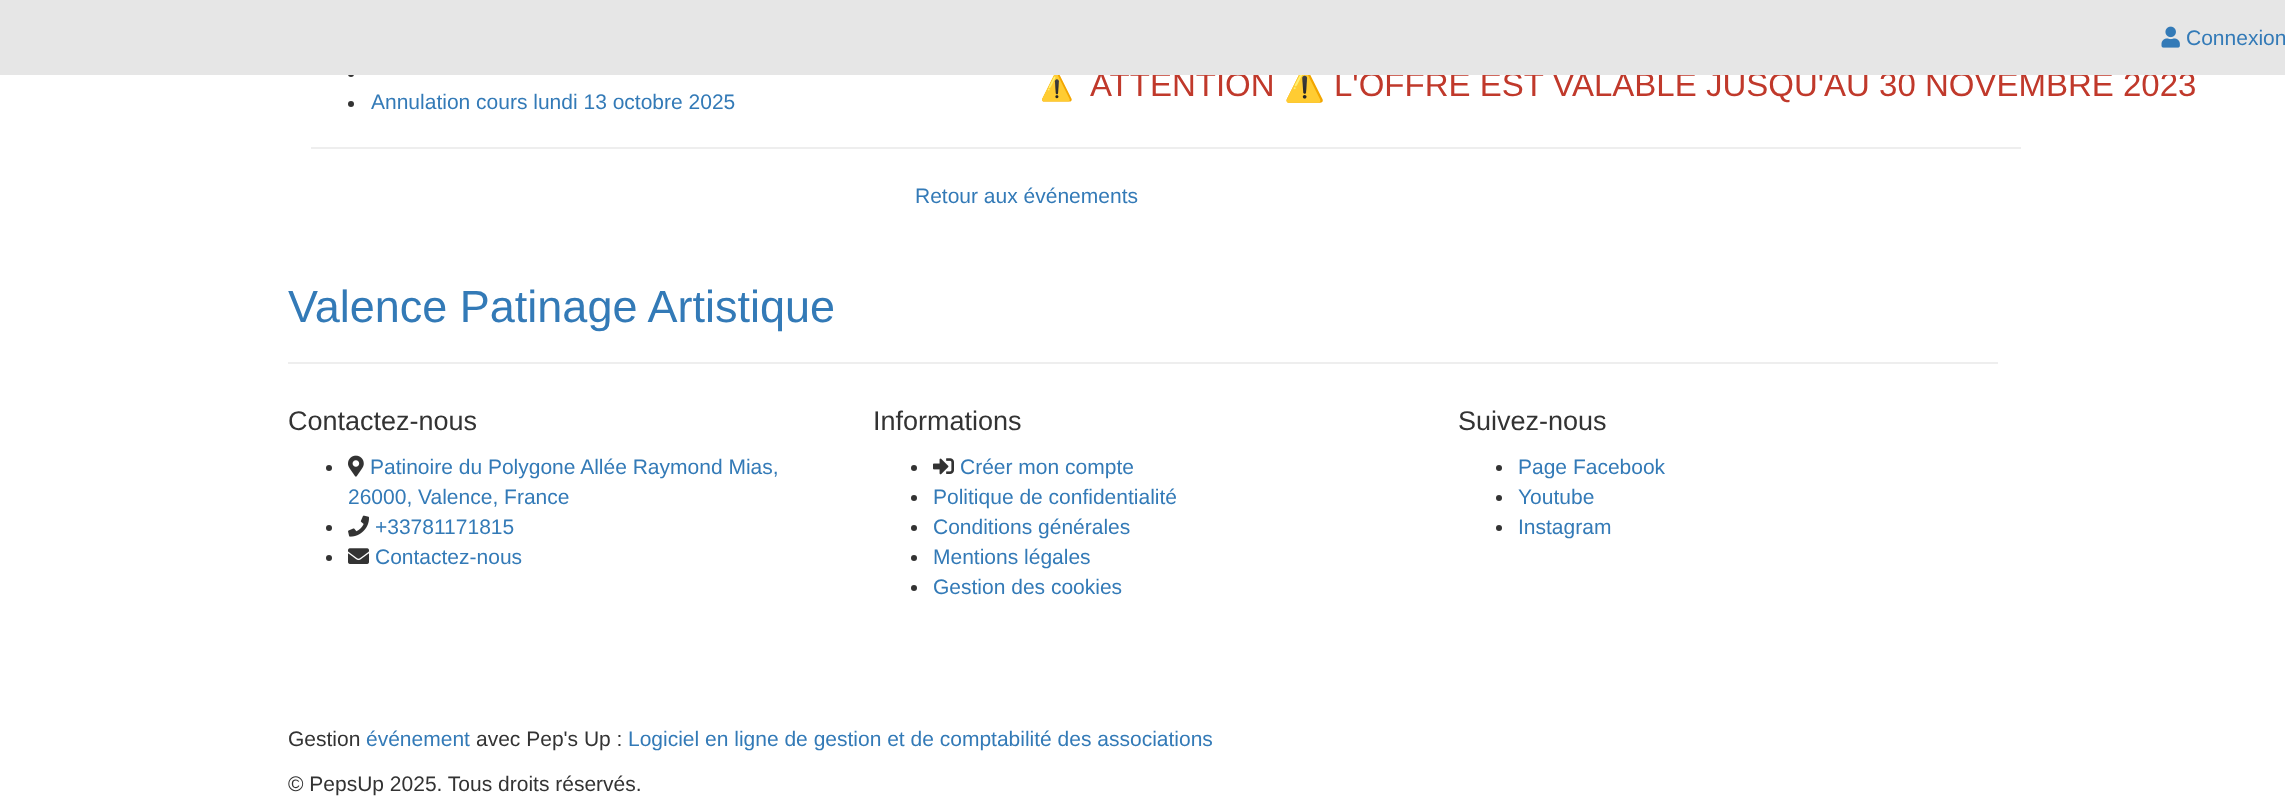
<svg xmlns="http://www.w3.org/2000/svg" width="2285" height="804">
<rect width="100%" height="100%" fill="#fff"/>
<circle cx="351" cy="74" r="3" fill="#333"/>
<text x="1040" y="96" style="font-family:Noto Color Emoji;font-size:27px;fill:#c0392b">⚠️</text>
<text x="1090" y="96" style="font-family:Liberation Sans;font-size:33px;fill:#c0392b">ATTENTION</text>
<text x="1284" y="96" style="font-family:Noto Color Emoji;font-size:33px;fill:#c0392b">⚠️</text>
<text x="1334" y="96" style="font-family:Liberation Sans;font-size:33px;fill:#c0392b">L'OFFRE EST VALABLE JUSQU'AU 30 NOVEMBRE 2023</text>
<rect width="2285" height="75" fill="#e6e6e6"/>
<image x="2161" y="26" width="19" height="22" href="media/1.png"/>
<text x="2186" y="45" style="font-family:Liberation Sans;font-size:21px;fill:#337ab7">Connexion</text>
<circle cx="351" cy="104" r="3" fill="#333"/>
<text x="371" y="109" style="font-family:Liberation Sans;font-size:21px;fill:#337ab7">Annulation cours lundi 13 octobre 2025</text>
<rect x="311" y="147" width="1710" height="2" fill="#eee"/>
<text x="915" y="203" style="font-family:Liberation Sans;font-size:21px;fill:#337ab7">Retour aux événements</text>
<text x="288" y="322" style="font-family:Liberation Sans;font-size:45px;fill:#337ab7">Valence Patinage Artistique</text>
<rect x="288" y="362" width="1710" height="2" fill="#eee"/>
<text x="288" y="430" style="font-family:Liberation Sans;font-size:27px;fill:#333">Contactez-nous</text>
<circle cx="329" cy="468" r="3" fill="#333"/>
<image x="348" y="455" width="16" height="22" href="media/2.png"/>
<text x="370" y="474" style="font-family:Liberation Sans;font-size:21px;fill:#337ab7">Patinoire du Polygone Allée Raymond Mias,</text>
<text x="348" y="504" style="font-family:Liberation Sans;font-size:21px;fill:#337ab7">26000, Valence, France</text>
<circle cx="329" cy="528" r="3" fill="#333"/>
<image x="348" y="515" width="21" height="22" href="media/3.png"/>
<text x="375" y="534" style="font-family:Liberation Sans;font-size:21px;fill:#337ab7">+33781171815</text>
<circle cx="329" cy="558" r="3" fill="#333"/>
<image x="348" y="548" width="21" height="16" href="media/4.png"/>
<text x="375" y="564" style="font-family:Liberation Sans;font-size:21px;fill:#337ab7">Contactez-nous</text>
<text x="873" y="430" style="font-family:Liberation Sans;font-size:27px;fill:#333">Informations</text>
<circle cx="914" cy="468" r="3" fill="#333"/>
<image x="933" y="458" width="21" height="17" href="media/5.png"/>
<text x="960" y="474" style="font-family:Liberation Sans;font-size:21px;fill:#337ab7">Créer mon compte</text>
<circle cx="914" cy="498" r="3" fill="#333"/>
<text x="933" y="504" style="font-family:Liberation Sans;font-size:21px;fill:#337ab7">Politique de confidentialité</text>
<circle cx="914" cy="528" r="3" fill="#333"/>
<text x="933" y="534" style="font-family:Liberation Sans;font-size:21px;fill:#337ab7">Conditions générales</text>
<circle cx="914" cy="558" r="3" fill="#333"/>
<text x="933" y="564" style="font-family:Liberation Sans;font-size:21px;fill:#337ab7">Mentions légales</text>
<circle cx="914" cy="588" r="3" fill="#333"/>
<text x="933" y="594" style="font-family:Liberation Sans;font-size:21px;fill:#337ab7">Gestion des cookies</text>
<text x="1458" y="430" style="font-family:Liberation Sans;font-size:27px;fill:#333">Suivez-nous</text>
<circle cx="1499" cy="468" r="3" fill="#333"/>
<text x="1518" y="474" style="font-family:Liberation Sans;font-size:21px;fill:#337ab7">Page Facebook</text>
<circle cx="1499" cy="498" r="3" fill="#333"/>
<text x="1518" y="504" style="font-family:Liberation Sans;font-size:21px;fill:#337ab7">Youtube</text>
<circle cx="1499" cy="528" r="3" fill="#333"/>
<text x="1518" y="534" style="font-family:Liberation Sans;font-size:21px;fill:#337ab7">Instagram</text>
<text x="288" y="746" style="font-family:Liberation Sans;font-size:21px;fill:#333">Gestion</text>
<text x="366" y="746" style="font-family:Liberation Sans;font-size:21px;fill:#337ab7">événement</text>
<text x="476" y="746" style="font-family:Liberation Sans;font-size:21px;fill:#333">avec Pep's Up :</text>
<text x="628" y="746" style="font-family:Liberation Sans;font-size:21px;fill:#337ab7">Logiciel en ligne de gestion et de comptabilité des associations</text>
<text x="288" y="791" style="font-family:Liberation Sans;font-size:21px;fill:#333">© PepsUp 2025. Tous droits réservés.</text>
</svg>
